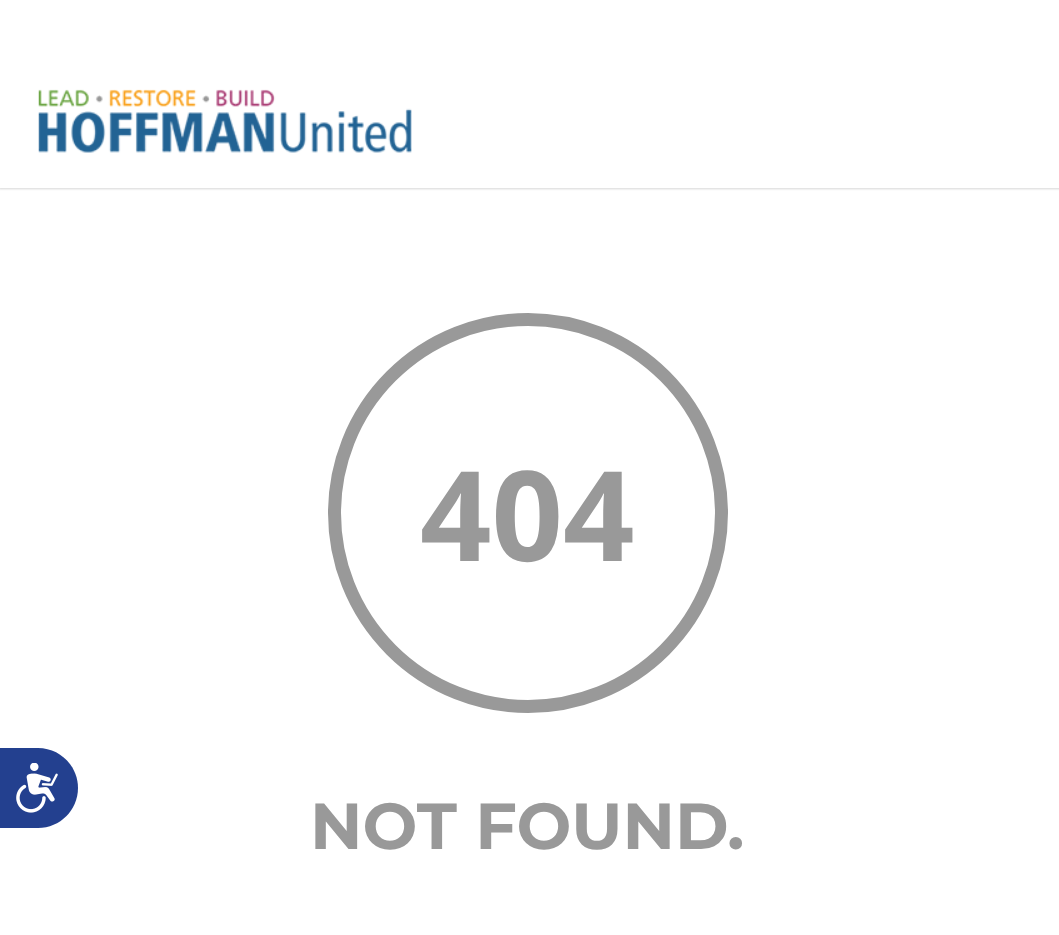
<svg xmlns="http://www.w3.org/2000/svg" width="1059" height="935">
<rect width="100%" height="100%" fill="#fff"/>
<path d="M0 748h38c22 0 40 18 40 40c0 22-18 40-40 40h-38z" fill="#23408f"/>
<image x="16" y="763" width="42" height="50" href="media/1.png"/>
<rect x="-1" y="-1" width="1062" height="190" fill="#00000029" filter="blur(1px)"/>
<rect width="1059" height="188" fill="#fff"/>
<image x="38" y="89" width="374" height="64" href="media/2.png"/>
<circle cx="528" cy="513" r="193.5" fill="none" stroke="#999" stroke-width="13"/>
<text x="420" y="561" style="font-family:Open Sans;font-size:125px;font-weight:bold;fill:#999">404</text>
<text x="310" y="849" style="font-family:Montserrat;font-size:65px;font-weight:bold;fill:#999">NOT FOUND.</text>
</svg>
